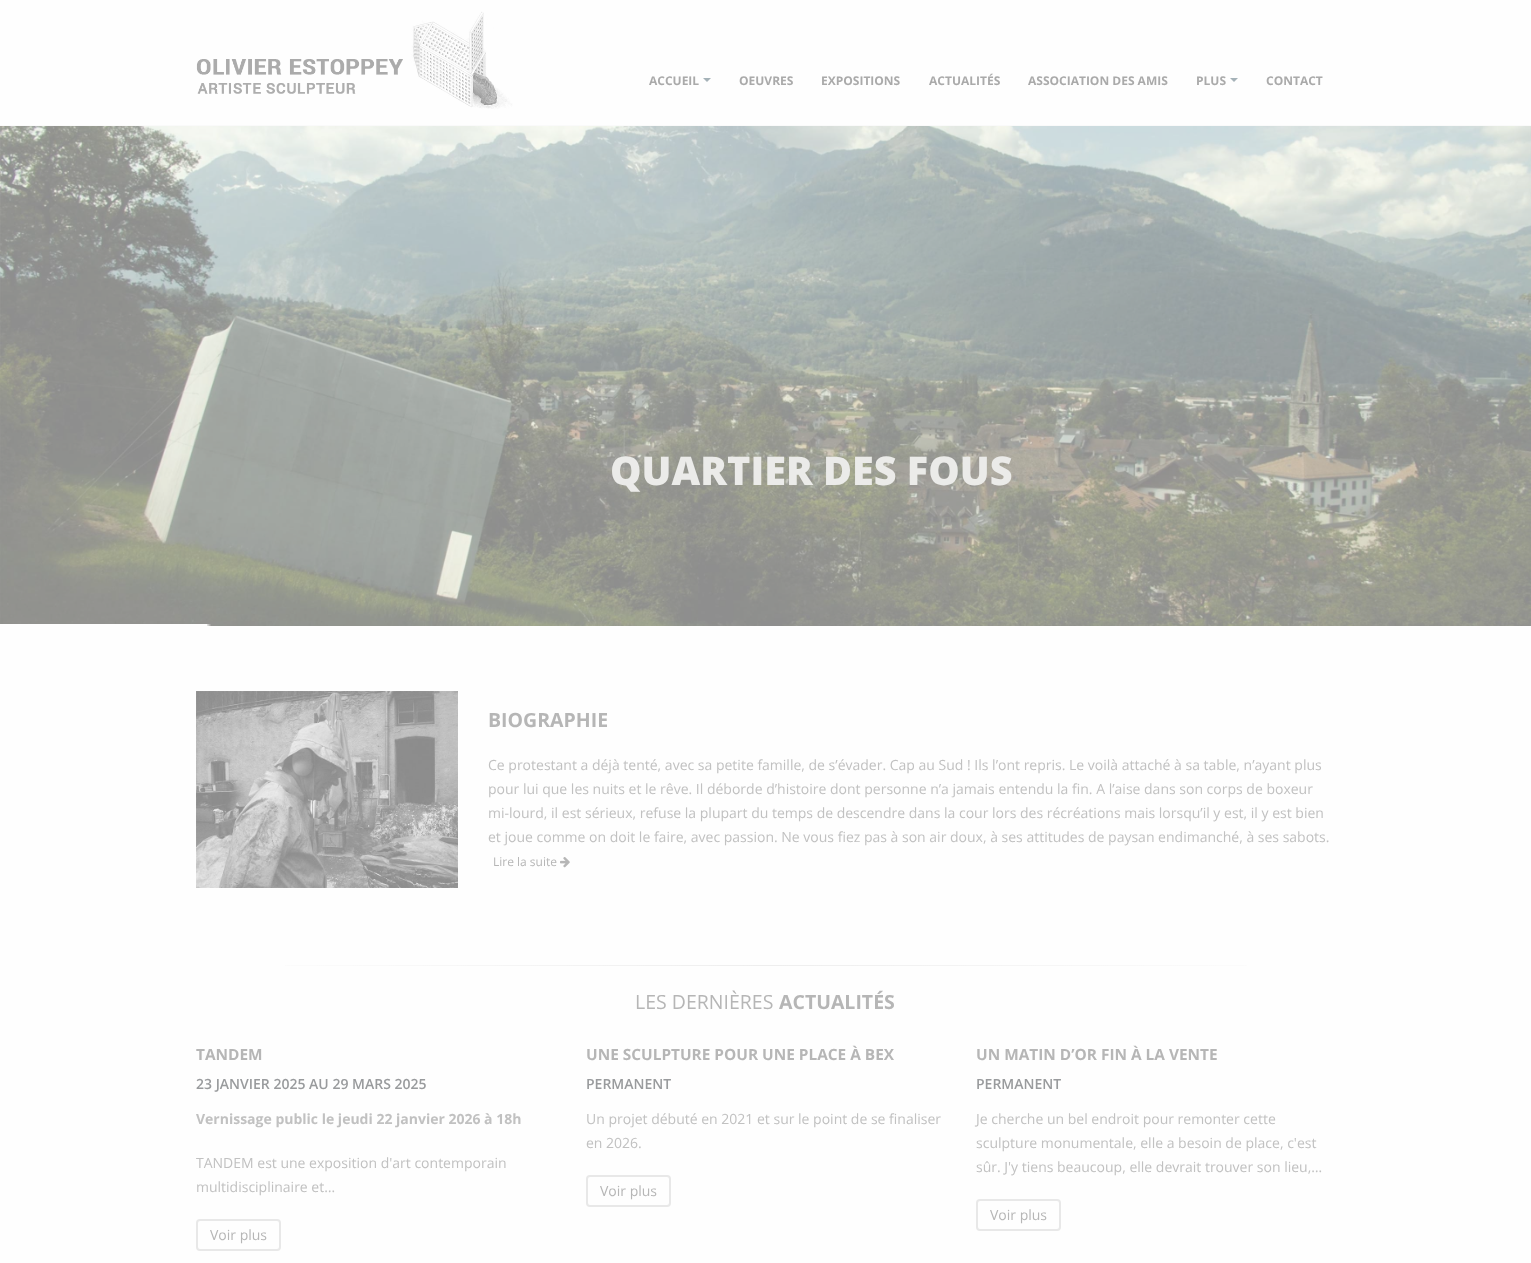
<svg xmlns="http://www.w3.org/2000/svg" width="1531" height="1263">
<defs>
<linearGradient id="g1" gradientUnits="userSpaceOnUse" x1="196" y1="966" x2="1336" y2="966"><stop offset="0" stop-color="#fefefe"/><stop offset="0.5" stop-color="#eee"/><stop offset="1" stop-color="#fefefe"/></linearGradient>
</defs>
<rect width="100%" height="100%" fill="#fefefe"/>
<rect y="125" width="1531" height="1" fill="#fafafa"/>
<image x="196" y="11" width="317" height="99" href="media/1.png"/>
<text x="649" y="85" style="font-family:Open Sans;font-size:12px;font-weight:bold;fill:#aaa">ACCUEIL</text>
<path d="M703 78h8l-4 4z" fill="#a5b2b8"/>
<text x="739" y="85" style="font-family:Open Sans;font-size:12px;font-weight:bold;fill:#aaa">OEUVRES</text>
<text x="821" y="85" style="font-family:Open Sans;font-size:12px;font-weight:bold;fill:#aaa">EXPOSITIONS</text>
<text x="929" y="85" style="font-family:Open Sans;font-size:12px;font-weight:bold;fill:#aaa">ACTUALITÉS</text>
<text x="1028" y="85" style="font-family:Open Sans;font-size:12px;font-weight:bold;fill:#aaa">ASSOCIATION DES AMIS</text>
<text x="1196" y="85" style="font-family:Open Sans;font-size:12px;font-weight:bold;fill:#aaa">PLUS</text>
<path d="M1230 78h8l-4 4z" fill="#a5b2b8"/>
<text x="1266" y="85" style="font-family:Open Sans;font-size:12px;font-weight:bold;fill:#aaa">CONTACT</text>
<image x="0" y="126" width="1531" height="500" href="media/2.png"/>
<text x="610" y="485" style="font-family:Open Sans;font-size:39.6px;font-weight:800;fill:#ebebe9">QUARTIER DES FOUS</text>
<rect y="624" width="207" height="2" fill="#fefefe"/>
<image x="207" y="624" width="4" height="2" href="media/3.png"/>
<image x="196" y="691" width="262" height="197" href="media/4.png"/>
<text x="488" y="727" style="font-family:Open Sans;font-size:19.5px;font-weight:bold;fill:#b6b6b6">BIOGRAPHIE</text>
<text x="488" y="770" style="font-family:Open Sans;font-size:14px;fill:#c1c1c1">Ce protestant a déjà tenté, avec sa petite famille, de s’évader. Cap au Sud ! Ils l’ont repris. Le voilà attaché à sa table, n’ayant plus</text>
<text x="488" y="794" style="font-family:Open Sans;font-size:14px;fill:#c1c1c1">pour lui que les nuits et le rêve. Il déborde d’histoire dont personne n’a jamais entendu la fin. A l’aise dans son corps de boxeur</text>
<text x="488" y="818" style="font-family:Open Sans;font-size:14px;fill:#c1c1c1">mi-lourd, il est sérieux, refuse la plupart du temps de descendre dans la cour lors des récréations mais lorsqu’il y est, il y est bien</text>
<text x="488" y="842" style="font-family:Open Sans;font-size:14px;fill:#c1c1c1">et joue comme on doit le faire, avec passion. Ne vous fiez pas à son air doux, à ses attitudes de paysan endimanché, à ses sabots.</text>
<text x="493" y="866" style="font-family:Open Sans;font-size:12px;fill:#b6b6b6">Lire la suite</text>
<image x="560" y="857" width="10" height="11" href="media/5.png"/>
<rect x="285" y="965" width="962" height="1" fill="url(#g1)"/>
<text x="635" y="1009" style="font-family:Open Sans;font-size:19.5px;fill:#b6b6b6">LES DERNIÈRES</text>
<text x="779" y="1009" style="font-family:Open Sans;font-size:19.5px;font-weight:bold;fill:#b6b6b6">ACTUALITÉS</text>
<text x="196" y="1060" style="font-family:Open Sans;font-size:15.4px;font-weight:bold;fill:#b6b6b6">TANDEM</text>
<text x="196" y="1089" style="font-family:Open Sans;font-size:14px;font-weight:600;fill:#999b9d">23 JANVIER 2025 AU 29 MARS 2025</text>
<text x="196" y="1124" style="font-family:Open Sans;font-size:14px;font-weight:bold;fill:#c1c1c1">Vernissage public le jeudi 22 janvier 2026 à 18h</text>
<text x="196" y="1168" style="font-family:Open Sans;font-size:14px;fill:#c1c1c1">TANDEM est une exposition d'art contemporain</text>
<text x="196" y="1192" style="font-family:Open Sans;font-size:14px;fill:#c1c1c1">multidisciplinaire et…</text>
<rect x="197" y="1220" width="83" height="30" rx="3" fill="none" stroke="#e8e8e8" stroke-width="2"/>
<text x="210" y="1240" style="font-family:Open Sans;font-size:14px;fill:#b6b6b6">Voir plus</text>
<text x="586" y="1060" style="font-family:Open Sans;font-size:15.4px;font-weight:bold;fill:#b6b6b6">UNE SCULPTURE POUR UNE PLACE À BEX</text>
<text x="586" y="1089" style="font-family:Open Sans;font-size:14px;font-weight:600;fill:#999b9d">PERMANENT</text>
<text x="586" y="1124" style="font-family:Open Sans;font-size:14px;fill:#c1c1c1">Un projet débuté en 2021 et sur le point de se finaliser</text>
<text x="586" y="1148" style="font-family:Open Sans;font-size:14px;fill:#c1c1c1">en 2026.</text>
<rect x="587" y="1176" width="83" height="30" rx="3" fill="none" stroke="#e8e8e8" stroke-width="2"/>
<text x="600" y="1196" style="font-family:Open Sans;font-size:14px;fill:#b6b6b6">Voir plus</text>
<text x="976" y="1060" style="font-family:Open Sans;font-size:15.4px;font-weight:bold;fill:#b6b6b6">UN MATIN D’OR FIN À LA VENTE</text>
<text x="976" y="1089" style="font-family:Open Sans;font-size:14px;font-weight:600;fill:#999b9d">PERMANENT</text>
<text x="976" y="1124" style="font-family:Open Sans;font-size:14px;fill:#c1c1c1">Je cherche un bel endroit pour remonter cette</text>
<text x="976" y="1148" style="font-family:Open Sans;font-size:14px;fill:#c1c1c1">sculpture monumentale, elle a besoin de place, c'est</text>
<text x="976" y="1172" style="font-family:Open Sans;font-size:14px;fill:#c1c1c1">sûr. J'y tiens beaucoup, elle devrait trouver son lieu,…</text>
<rect x="977" y="1200" width="83" height="30" rx="3" fill="none" stroke="#e8e8e8" stroke-width="2"/>
<text x="990" y="1220" style="font-family:Open Sans;font-size:14px;fill:#b6b6b6">Voir plus</text>
</svg>
